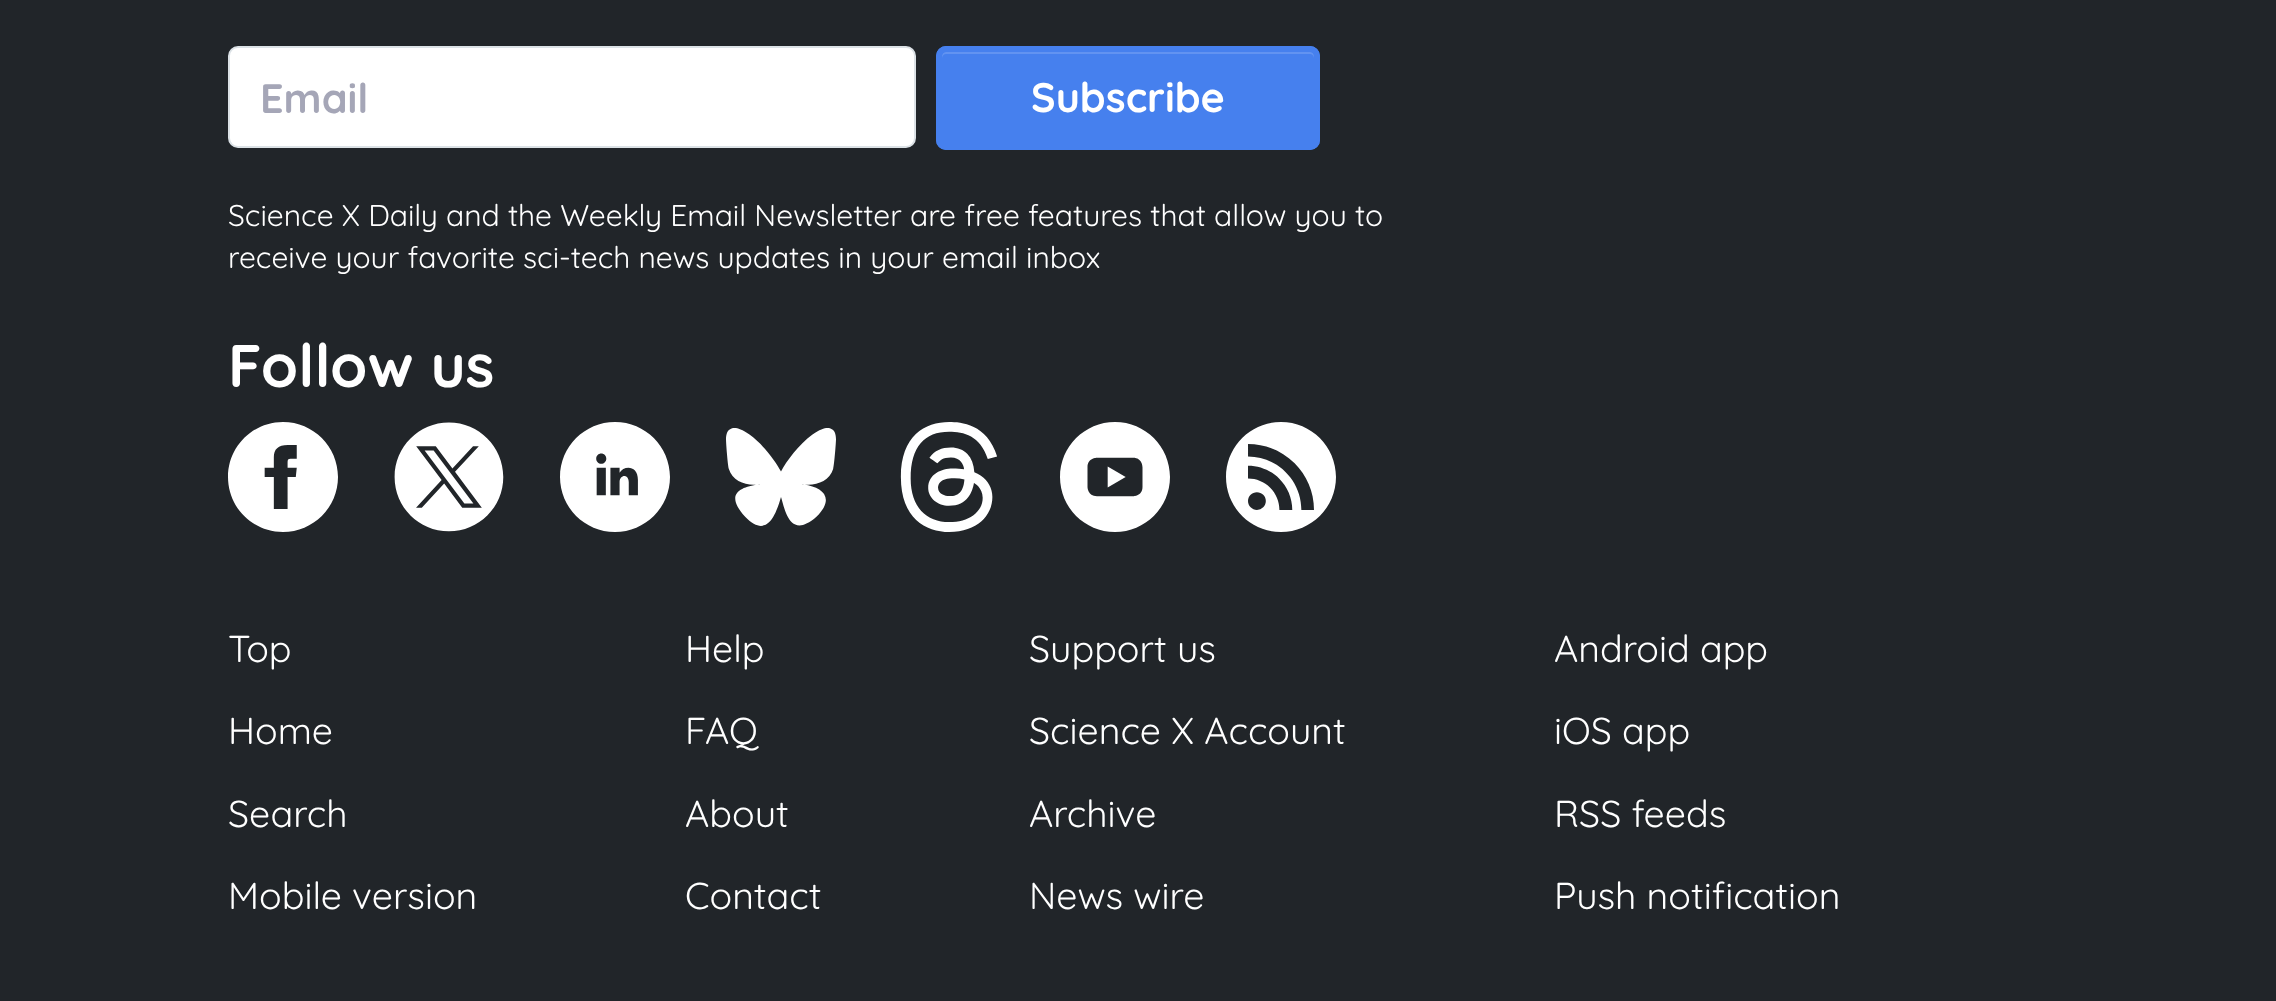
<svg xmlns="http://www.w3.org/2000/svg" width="2276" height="1001">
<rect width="100%" height="100%" fill="#212529"/>
<rect x="229" y="47" width="686" height="100" rx="9" fill="#fff" stroke="#dce2e6" stroke-width="2"/>
<text x="260" y="113" style="font-family:Quicksand;font-size:41.25px;font-weight:bold;fill:#a5a6b7">Email</text>
<rect x="936" y="46" width="384" height="104" rx="10" fill="#4680ee"/>
<path d="M946 54h364c2 0 4 2 4 4v-2c0-2-2-4-4-4h-364c-2 0-4 2-4 4v2c0-2 2-4 4-4z" fill="#6293f1"/>
<rect x="939" y="49" width="378" height="98" rx="7" fill="none" stroke="#4680ee" stroke-width="6"/>
<text x="1031" y="112" style="font-family:Quicksand;font-size:41.25px;font-weight:bold;fill:#fff">Subscribe</text>
<text x="228" y="226" style="font-family:Quicksand;font-size:30px;fill:#fff">Science X Daily and the Weekly Email Newsletter are free features that allow you to</text>
<text x="228" y="268" style="font-family:Quicksand;font-size:30px;fill:#fff">receive your favorite sci-tech news updates in your email inbox</text>
<text x="228" y="387" style="font-family:Quicksand;font-size:60px;font-weight:bold;fill:#fff">Follow us</text>
<image x="228" y="422" width="110" height="110" href="media/1.png"/>
<image x="394" y="422" width="110" height="110" href="media/2.png"/>
<image x="560" y="422" width="110" height="110" href="media/3.png"/>
<image x="726" y="428" width="110" height="98" href="media/4.png"/>
<image x="900" y="422" width="97" height="110" href="media/5.png"/>
<image x="1060" y="422" width="110" height="110" href="media/6.png"/>
<image x="1226" y="422" width="110" height="110" href="media/7.png"/>
<text x="228" y="662" style="font-family:Quicksand;font-size:37.5px;fill:#fff">Top</text>
<text x="228" y="744" style="font-family:Quicksand;font-size:37.5px;fill:#fff">Home</text>
<text x="228" y="827" style="font-family:Quicksand;font-size:37.5px;fill:#fff">Search</text>
<text x="228" y="909" style="font-family:Quicksand;font-size:37.5px;fill:#fff">Mobile version</text>
<text x="685" y="662" style="font-family:Quicksand;font-size:37.5px;fill:#fff">Help</text>
<text x="685" y="744" style="font-family:Quicksand;font-size:37.5px;fill:#fff">FAQ</text>
<text x="685" y="827" style="font-family:Quicksand;font-size:37.5px;fill:#fff">About</text>
<text x="685" y="909" style="font-family:Quicksand;font-size:37.5px;fill:#fff">Contact</text>
<text x="1029" y="662" style="font-family:Quicksand;font-size:37.5px;fill:#fff">Support us</text>
<text x="1029" y="744" style="font-family:Quicksand;font-size:37.5px;fill:#fff">Science X Account</text>
<text x="1029" y="827" style="font-family:Quicksand;font-size:37.5px;fill:#fff">Archive</text>
<text x="1029" y="909" style="font-family:Quicksand;font-size:37.5px;fill:#fff">News wire</text>
<text x="1554" y="662" style="font-family:Quicksand;font-size:37.5px;fill:#fff">Android app</text>
<text x="1554" y="744" style="font-family:Quicksand;font-size:37.5px;fill:#fff">iOS app</text>
<text x="1554" y="827" style="font-family:Quicksand;font-size:37.5px;fill:#fff">RSS feeds</text>
<text x="1554" y="909" style="font-family:Quicksand;font-size:37.5px;fill:#fff">Push notification</text>
</svg>
